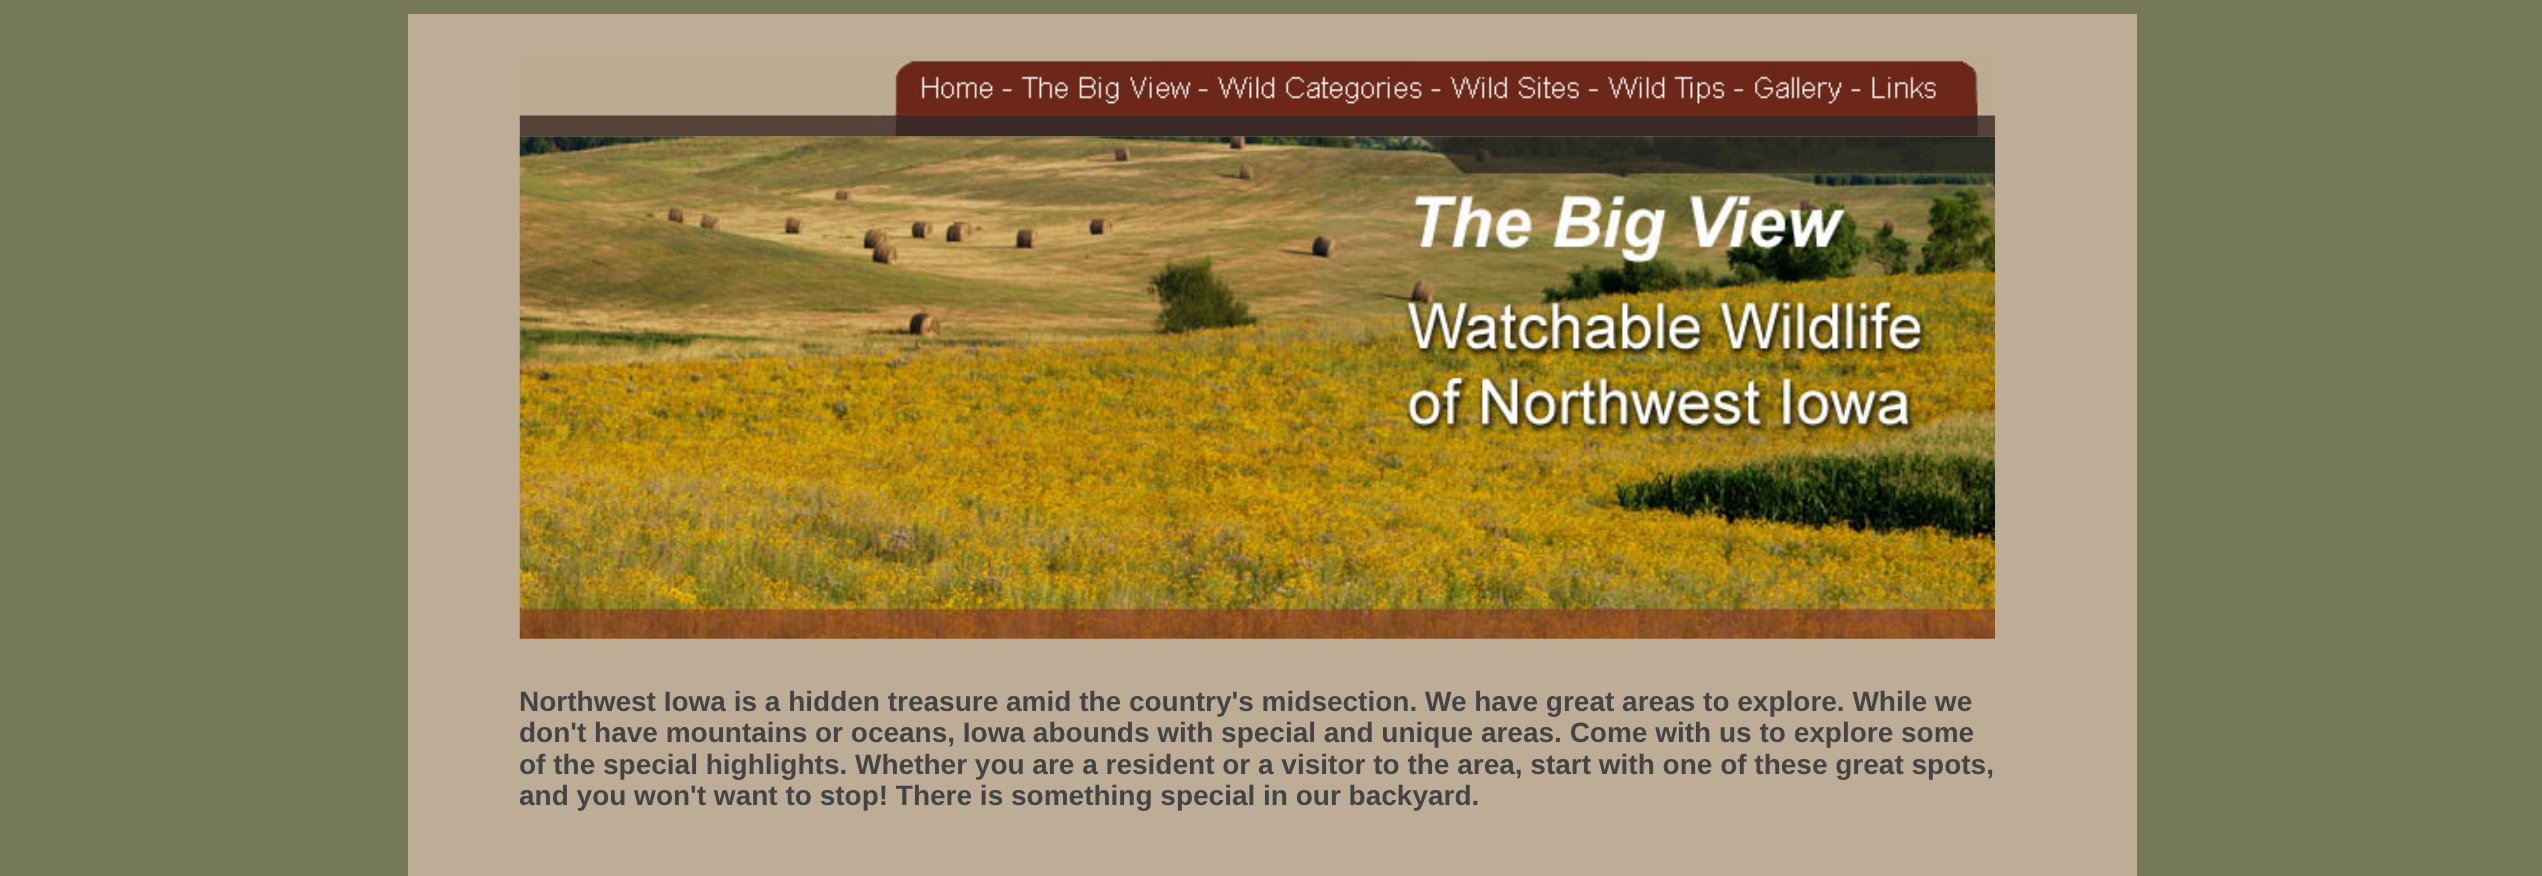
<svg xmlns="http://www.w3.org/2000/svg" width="2542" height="876">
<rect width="100%" height="100%" fill="#757958"/>
<rect x="408" y="14" width="1729" height="862" fill="#bdad97"/>
<image x="519" y="55" width="1476" height="82" href="media/1.png"/>
<image x="519" y="136" width="1476" height="503" href="media/2.png"/>
<text x="519" y="711" style="font-family:Liberation Sans;font-size:28px;font-weight:bold;fill:#444">Northwest Iowa is a hidden treasure amid the country's midsection. We have great areas to explore. While we</text>
<text x="519" y="742" style="font-family:Liberation Sans;font-size:28px;font-weight:bold;fill:#444">don't have mountains or oceans, Iowa abounds with special and unique areas. Come with us to explore some</text>
<text x="519" y="774" style="font-family:Liberation Sans;font-size:28px;font-weight:bold;fill:#444">of the special highlights. Whether you are a resident or a visitor to the area, start with one of these great spots,</text>
<text x="519" y="805" style="font-family:Liberation Sans;font-size:28px;font-weight:bold;fill:#444">and you won't want to stop! There is something special in our backyard.</text>
</svg>
